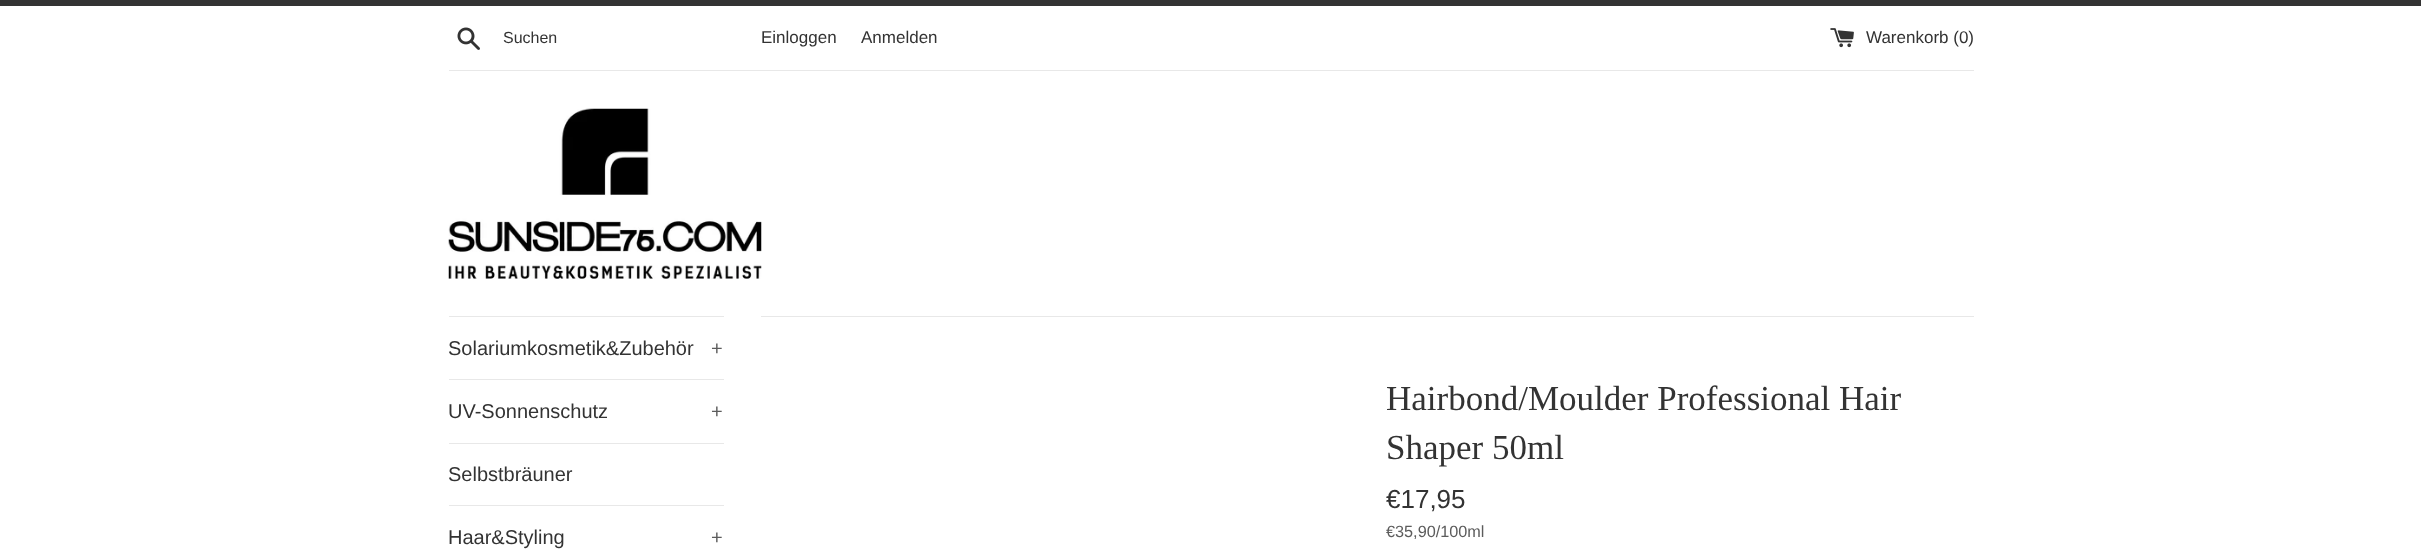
<svg xmlns="http://www.w3.org/2000/svg" width="2421" height="549">
<rect width="100%" height="100%" fill="#fff"/>
<rect width="2421" height="6" fill="#333"/>
<image x="457" y="27" width="23" height="23" href="media/1.png"/>
<text x="503" y="43" style="font-family:Liberation Sans;font-size:16px;fill:#333">Suchen</text>
<text x="761" y="43" style="font-family:Liberation Sans;font-size:17px;fill:#333">Einloggen</text>
<text x="861" y="43" style="font-family:Liberation Sans;font-size:17px;fill:#333">Anmelden</text>
<image x="1830" y="28" width="24" height="20" href="media/2.png"/>
<text x="1866" y="43" style="font-family:Liberation Sans;font-size:17px;fill:#333">Warenkorb (0)</text>
<rect x="449" y="70" width="1525" height="1" fill="#e8e8e8"/>
<image x="448" y="108" width="314" height="171" href="media/3.png"/>
<rect x="449" y="316" width="275" height="1" fill="#e8e8e8"/>
<rect x="449" y="379" width="275" height="1" fill="#e8e8e8"/>
<text x="448" y="355" style="font-family:Liberation Sans;font-size:20px;fill:#333">Solariumkosmetik&amp;Zubehör</text>
<text x="711" y="355" style="font-family:Liberation Sans;font-size:20px;fill:#5c5c5c">+</text>
<rect x="449" y="443" width="275" height="1" fill="#e8e8e8"/>
<text x="448" y="418" style="font-family:Liberation Sans;font-size:20px;fill:#333">UV-Sonnenschutz</text>
<text x="711" y="418" style="font-family:Liberation Sans;font-size:20px;fill:#5c5c5c">+</text>
<rect x="449" y="505" width="275" height="1" fill="#e8e8e8"/>
<text x="448" y="481" style="font-family:Liberation Sans;font-size:20px;fill:#333">Selbstbräuner</text>
<text x="448" y="544" style="font-family:Liberation Sans;font-size:20px;fill:#333">Haar&amp;Styling</text>
<text x="711" y="544" style="font-family:Liberation Sans;font-size:20px;fill:#5c5c5c">+</text>
<rect x="761" y="316" width="1213" height="1" fill="#e8e8e8"/>
<text x="1386" y="410" style="font-family:Liberation Serif;font-size:35px;fill:#333">Hairbond/Moulder Professional Hair</text>
<text x="1386" y="459" style="font-family:Liberation Serif;font-size:35px;fill:#333">Shaper 50ml</text>
<text x="1386" y="508" style="font-family:Liberation Sans;font-size:26px;fill:#333">€17,95</text>
<text x="1386" y="537" style="font-family:Liberation Sans;font-size:16.25px;fill:#5c5c5c">€35,90/100ml</text>
</svg>
